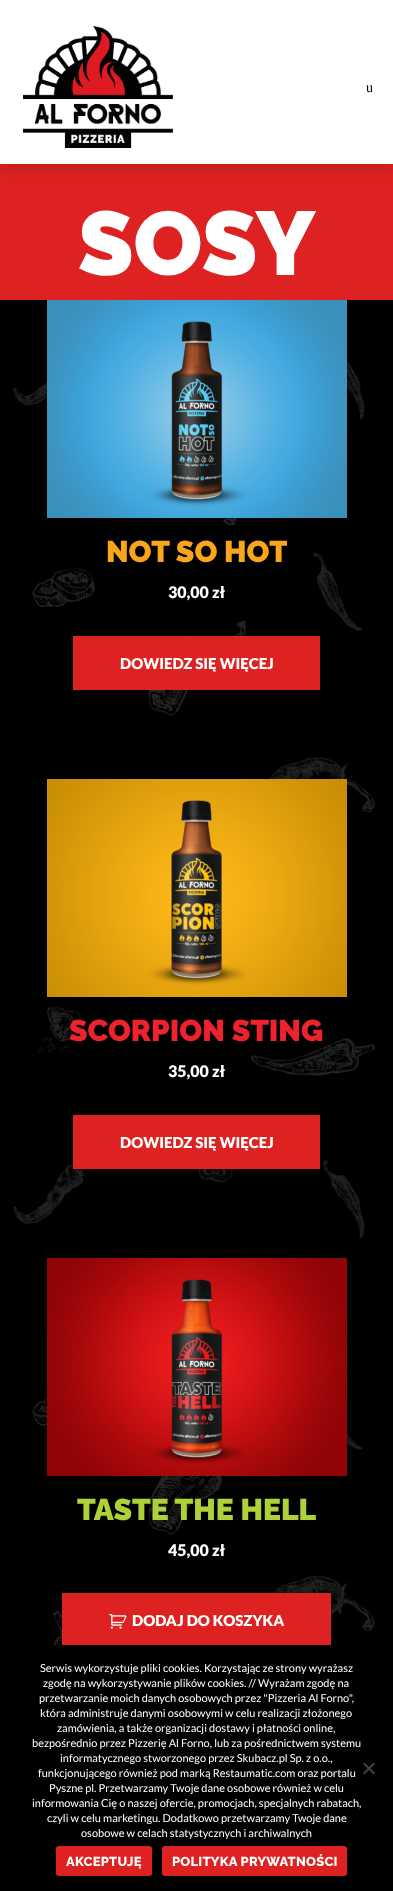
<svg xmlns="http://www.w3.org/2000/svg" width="393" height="1891">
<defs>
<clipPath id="clip1"><rect x="106" y="534" width="181" height="36"/></clipPath>
</defs>
<rect width="100%" height="100%" fill="#de2222"/>
<rect y="4" width="393" height="164" fill="#01010126" filter="blur(8px)"/>
<rect width="393" height="164" fill="#fff"/>
<image x="23" y="26" width="150" height="122" href="media/1.png"/>
<text x="366" y="92" style="font-family:Liberation Serif;font-size:14px;fill:#000">u</text>
<text x="78" y="275" style="font-family:Raleway;font-size:90px;font-weight:900;fill:#fff">SOSY</text>
<image x="0" y="300" width="393" height="1345" href="media/2.png"/>
<image x="47" y="300" width="300" height="218" href="media/3.png"/>
<g clip-path="url(#clip1)">
<text x="106" y="562" style="font-family:Raleway;font-size:30px;font-weight:900;fill:#faa51a">NOT SO HOT</text>
</g>
<text x="168" y="598" style="font-family:Lato;font-size:16px;font-weight:900;fill:#fff">30,00 zł</text>
<rect x="73" y="636" width="247" height="54" fill="#de2222"/>
<text x="120" y="669" style="font-family:Lato;font-size:15px;font-weight:900;fill:#fff">DOWIEDZ SIĘ WIĘCEJ</text>
<image x="47" y="779" width="300" height="218" href="media/4.png"/>
<text x="69" y="1041" style="font-family:Raleway;font-size:30px;font-weight:900;fill:#ed222d">SCORPION STING</text>
<text x="168" y="1077" style="font-family:Lato;font-size:16px;font-weight:900;fill:#fff">35,00 zł</text>
<rect x="73" y="1115" width="247" height="54" fill="#de2222"/>
<text x="120" y="1148" style="font-family:Lato;font-size:15px;font-weight:900;fill:#fff">DOWIEDZ SIĘ WIĘCEJ</text>
<image x="47" y="1258" width="300" height="218" href="media/5.png"/>
<text x="77" y="1520" style="font-family:Raleway;font-size:30px;font-weight:900;fill:#aed138">TASTE THE HELL</text>
<text x="168" y="1556" style="font-family:Lato;font-size:16px;font-weight:900;fill:#fff">45,00 zł</text>
<rect x="62" y="1593" width="269" height="52" fill="#de2222"/>
<image x="109" y="1614" width="18" height="15" href="media/6.png"/>
<text x="132" y="1626" style="font-family:Lato;font-size:15px;font-weight:900;fill:#fff">DODAJ DO KOSZYKA</text>
<rect y="1645" width="393" height="246" fill="#000"/>
<text x="40" y="1672" style="font-family:Lato;font-size:11px;fill:#fff">Serwis wykorzystuje pliki cookies. Korzystając ze strony wyrażasz</text>
<text x="43" y="1687" style="font-family:Lato;font-size:11px;fill:#fff">zgodę na wykorzystywanie plików cookies. // Wyrażam zgodę na</text>
<text x="39" y="1702" style="font-family:Lato;font-size:11px;fill:#fff">przetwarzanie moich danych osobowych przez "Pizzeria Al Forno",</text>
<text x="40" y="1717" style="font-family:Lato;font-size:11px;fill:#fff">która administruje danymi osobowymi w celu realizacji złożonego</text>
<text x="57" y="1732" style="font-family:Lato;font-size:11px;fill:#fff">zamówienia, a także organizacji dostawy i płatności online,</text>
<text x="32" y="1747" style="font-family:Lato;font-size:11px;fill:#fff">bezpośrednio przez Pizzerię Al Forno, lub za pośrednictwem systemu</text>
<text x="60" y="1762" style="font-family:Lato;font-size:11px;fill:#fff">informatycznego stworzonego przez Skubacz.pl Sp. z o.o.,</text>
<text x="38" y="1777" style="font-family:Lato;font-size:11px;fill:#fff">funkcjonującego również pod marką Restaumatic.com oraz portalu</text>
<text x="49" y="1792" style="font-family:Lato;font-size:11px;fill:#fff">Pyszne pl. Przetwarzamy Twoje dane osobowe również w celu</text>
<text x="32" y="1807" style="font-family:Lato;font-size:11px;fill:#fff">informowania Cię o naszej ofercie, promocjach, specjalnych rabatach,</text>
<text x="47" y="1822" style="font-family:Lato;font-size:11px;fill:#fff">czyli w celu marketingu. Dodatkowo przetwarzamy Twoje dane</text>
<text x="81" y="1837" style="font-family:Lato;font-size:11px;fill:#fff">osobowe w celach statystycznych i archiwalnych</text>
<path d="M373.5 1762.5l1.5 1.5l-10.5 10.5l-1.5-1.5z" fill="#404040"/>
<path d="M363 1764l1.5-1.5l10.5 10.5l-1.5 1.5z" fill="#404040"/>
<rect x="56" y="1846" width="96" height="30" rx="3" fill="#de2222"/>
<text x="66" y="1866" style="font-family:Raleway;font-size:13px;font-weight:800;letter-spacing:0.25px;fill:#fff">AKCEPTUJĘ</text>
<rect x="162" y="1846" width="185" height="30" rx="3" fill="#de2222"/>
<text x="172" y="1866" style="font-family:Raleway;font-size:13px;font-weight:800;letter-spacing:0.25px;fill:#fff">POLITYKA PRYWATNOŚCI</text>
</svg>
